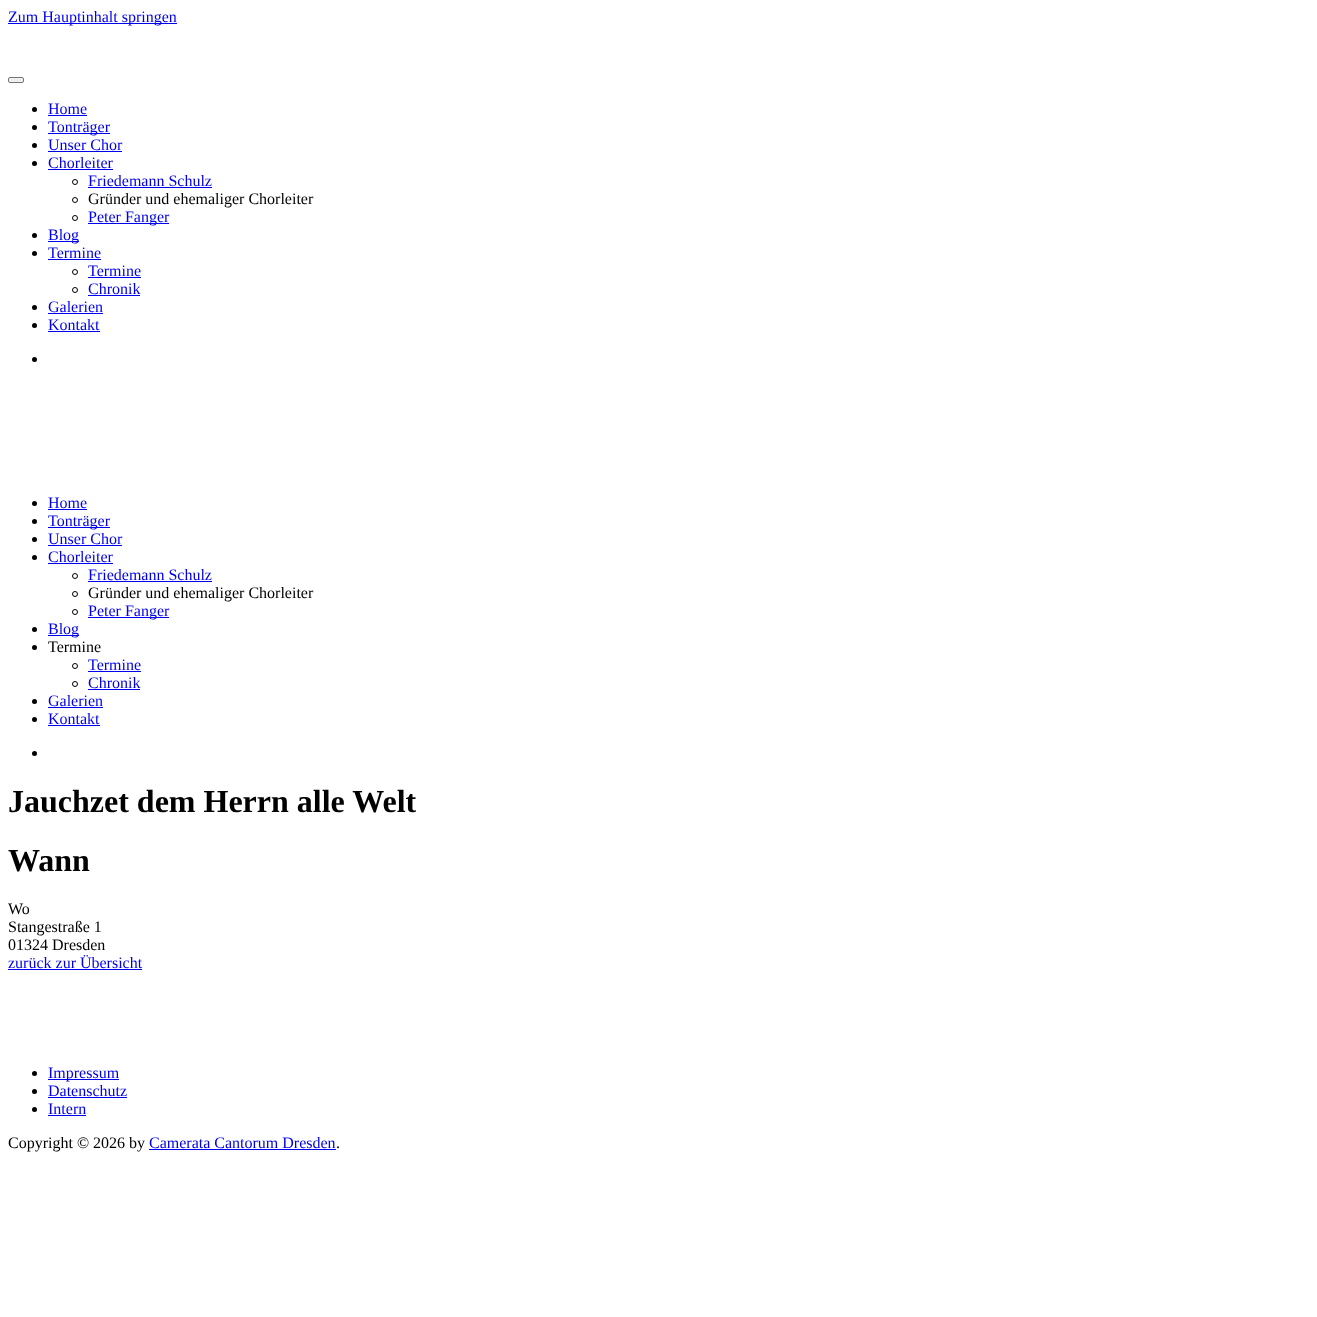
<svg xmlns="http://www.w3.org/2000/svg" width="1317" height="1317">
<rect width="100%" height="100%" fill="#fff"/>
<rect x="8" y="23" width="169" height="1" fill="#00e"/>
<text x="8" y="22" style="font-family:Liberation Serif;font-size:16px;fill:#00e">Zum Hauptinhalt springen</text>
<rect x="8.5" y="77.5" width="15" height="5" rx="1.5" fill="#efefef" stroke="#767676"/>
<circle cx="34.5" cy="109.5" r="2.5" fill="#000"/>
<text x="48" y="114" style="font-family:Liberation Serif;font-size:16px;fill:#00e">Home</text>
<rect x="48" y="115" width="39" height="1" fill="#00e"/>
<circle cx="34.5" cy="127.5" r="2.5" fill="#000"/>
<rect x="48" y="133" width="62" height="1" fill="#00e"/>
<text x="48" y="132" style="font-family:Liberation Serif;font-size:16px;fill:#00e">Tonträger</text>
<circle cx="34.5" cy="145.5" r="2.5" fill="#000"/>
<text x="48" y="150" style="font-family:Liberation Serif;font-size:16px;fill:#00e">Unser Chor</text>
<rect x="48" y="151" width="74" height="1" fill="#00e"/>
<circle cx="34.5" cy="163.5" r="2.5" fill="#000"/>
<text x="48" y="168" style="font-family:Liberation Serif;font-size:16px;fill:#00e">Chorleiter</text>
<rect x="48" y="169" width="65" height="1" fill="#00e"/>
<circle cx="75" cy="182" r="2.5" fill="none" stroke="#000"/>
<text x="88" y="186" style="font-family:Liberation Serif;font-size:16px;fill:#00e">Friedemann Schulz</text>
<rect x="88" y="187" width="124" height="1" fill="#00e"/>
<circle cx="75" cy="200" r="2.5" fill="none" stroke="#000"/>
<text x="88" y="204" style="font-family:Liberation Serif;font-size:16px;fill:#000">Gründer und ehemaliger Chorleiter</text>
<circle cx="75" cy="218" r="2.5" fill="none" stroke="#000"/>
<rect x="88" y="223" width="81" height="1" fill="#00e"/>
<text x="88" y="222" style="font-family:Liberation Serif;font-size:16px;fill:#00e">Peter Fanger</text>
<circle cx="34.5" cy="235.5" r="2.5" fill="#000"/>
<rect x="48" y="241" width="31" height="1" fill="#00e"/>
<text x="48" y="240" style="font-family:Liberation Serif;font-size:16px;fill:#00e">Blog</text>
<circle cx="34.5" cy="253.5" r="2.5" fill="#000"/>
<text x="48" y="258" style="font-family:Liberation Serif;font-size:16px;fill:#00e">Termine</text>
<rect x="48" y="259" width="53" height="1" fill="#00e"/>
<circle cx="75" cy="272" r="2.5" fill="none" stroke="#000"/>
<text x="88" y="276" style="font-family:Liberation Serif;font-size:16px;fill:#00e">Termine</text>
<rect x="88" y="277" width="53" height="1" fill="#00e"/>
<circle cx="75" cy="290" r="2.5" fill="none" stroke="#000"/>
<text x="88" y="294" style="font-family:Liberation Serif;font-size:16px;fill:#00e">Chronik</text>
<rect x="88" y="295" width="52" height="1" fill="#00e"/>
<circle cx="34.5" cy="307.5" r="2.5" fill="#000"/>
<text x="48" y="312" style="font-family:Liberation Serif;font-size:16px;fill:#00e">Galerien</text>
<rect x="48" y="313" width="55" height="1" fill="#00e"/>
<circle cx="34.5" cy="325.5" r="2.5" fill="#000"/>
<text x="48" y="330" style="font-family:Liberation Serif;font-size:16px;fill:#00e">Kontakt</text>
<rect x="48" y="331" width="52" height="1" fill="#00e"/>
<circle cx="34.5" cy="359.5" r="2.5" fill="#000"/>
<circle cx="34.5" cy="503.5" r="2.5" fill="#000"/>
<text x="48" y="508" style="font-family:Liberation Serif;font-size:16px;fill:#00e">Home</text>
<rect x="48" y="509" width="39" height="1" fill="#00e"/>
<circle cx="34.5" cy="521.5" r="2.5" fill="#000"/>
<rect x="48" y="527" width="62" height="1" fill="#00e"/>
<text x="48" y="526" style="font-family:Liberation Serif;font-size:16px;fill:#00e">Tonträger</text>
<circle cx="34.5" cy="539.5" r="2.5" fill="#000"/>
<text x="48" y="544" style="font-family:Liberation Serif;font-size:16px;fill:#00e">Unser Chor</text>
<rect x="48" y="545" width="74" height="1" fill="#00e"/>
<circle cx="34.5" cy="557.5" r="2.5" fill="#000"/>
<text x="48" y="562" style="font-family:Liberation Serif;font-size:16px;fill:#00e">Chorleiter</text>
<rect x="48" y="563" width="65" height="1" fill="#00e"/>
<circle cx="75" cy="576" r="2.5" fill="none" stroke="#000"/>
<text x="88" y="580" style="font-family:Liberation Serif;font-size:16px;fill:#00e">Friedemann Schulz</text>
<rect x="88" y="581" width="124" height="1" fill="#00e"/>
<circle cx="75" cy="594" r="2.5" fill="none" stroke="#000"/>
<text x="88" y="598" style="font-family:Liberation Serif;font-size:16px;fill:#000">Gründer und ehemaliger Chorleiter</text>
<circle cx="75" cy="612" r="2.5" fill="none" stroke="#000"/>
<rect x="88" y="617" width="81" height="1" fill="#00e"/>
<text x="88" y="616" style="font-family:Liberation Serif;font-size:16px;fill:#00e">Peter Fanger</text>
<circle cx="34.5" cy="629.5" r="2.5" fill="#000"/>
<rect x="48" y="635" width="31" height="1" fill="#00e"/>
<text x="48" y="634" style="font-family:Liberation Serif;font-size:16px;fill:#00e">Blog</text>
<circle cx="34.5" cy="647.5" r="2.5" fill="#000"/>
<text x="48" y="652" style="font-family:Liberation Serif;font-size:16px;fill:#000">Termine</text>
<circle cx="75" cy="666" r="2.5" fill="none" stroke="#000"/>
<text x="88" y="670" style="font-family:Liberation Serif;font-size:16px;fill:#00e">Termine</text>
<rect x="88" y="671" width="53" height="1" fill="#00e"/>
<circle cx="75" cy="684" r="2.5" fill="none" stroke="#000"/>
<text x="88" y="688" style="font-family:Liberation Serif;font-size:16px;fill:#00e">Chronik</text>
<rect x="88" y="689" width="52" height="1" fill="#00e"/>
<circle cx="34.5" cy="701.5" r="2.5" fill="#000"/>
<text x="48" y="706" style="font-family:Liberation Serif;font-size:16px;fill:#00e">Galerien</text>
<rect x="48" y="707" width="55" height="1" fill="#00e"/>
<circle cx="34.5" cy="719.5" r="2.5" fill="#000"/>
<text x="48" y="724" style="font-family:Liberation Serif;font-size:16px;fill:#00e">Kontakt</text>
<rect x="48" y="725" width="52" height="1" fill="#00e"/>
<circle cx="34.5" cy="753.5" r="2.5" fill="#000"/>
<text x="8" y="812" style="font-family:Liberation Serif;font-size:32px;font-weight:bold;fill:#000">Jauchzet dem Herrn alle Welt</text>
<text x="8" y="871" style="font-family:Liberation Serif;font-size:32px;font-weight:bold;fill:#000">Wann</text>
<text x="8" y="914" style="font-family:Liberation Serif;font-size:16px;fill:#000">Wo</text>
<text x="8" y="932" style="font-family:Liberation Serif;font-size:16px;fill:#000">Stangestraße 1</text>
<text x="8" y="950" style="font-family:Liberation Serif;font-size:16px;fill:#000">01324 Dresden</text>
<text x="8" y="968" style="font-family:Liberation Serif;font-size:16px;fill:#00e">zurück zur Übersicht</text>
<rect x="8" y="969" width="134" height="1" fill="#00e"/>
<circle cx="34.5" cy="1073.5" r="2.5" fill="#000"/>
<rect x="48" y="1079" width="71" height="1" fill="#00e"/>
<text x="48" y="1078" style="font-family:Liberation Serif;font-size:16px;fill:#00e">Impressum</text>
<circle cx="34.5" cy="1091.5" r="2.5" fill="#000"/>
<text x="48" y="1096" style="font-family:Liberation Serif;font-size:16px;fill:#00e">Datenschutz</text>
<rect x="48" y="1097" width="79" height="1" fill="#00e"/>
<circle cx="34.5" cy="1109.5" r="2.5" fill="#000"/>
<text x="48" y="1114" style="font-family:Liberation Serif;font-size:16px;fill:#00e">Intern</text>
<rect x="48" y="1115" width="38" height="1" fill="#00e"/>
<text x="8" y="1148" style="font-family:Liberation Serif;font-size:16px;fill:#000">Copyright © 2026 by</text>
<text x="149" y="1148" style="font-family:Liberation Serif;font-size:16px;fill:#00e">Camerata Cantorum Dresden</text>
<rect x="149" y="1149" width="187" height="1" fill="#00e"/>
<text x="336" y="1148" style="font-family:Liberation Serif;font-size:16px;fill:#000">.</text>
</svg>
